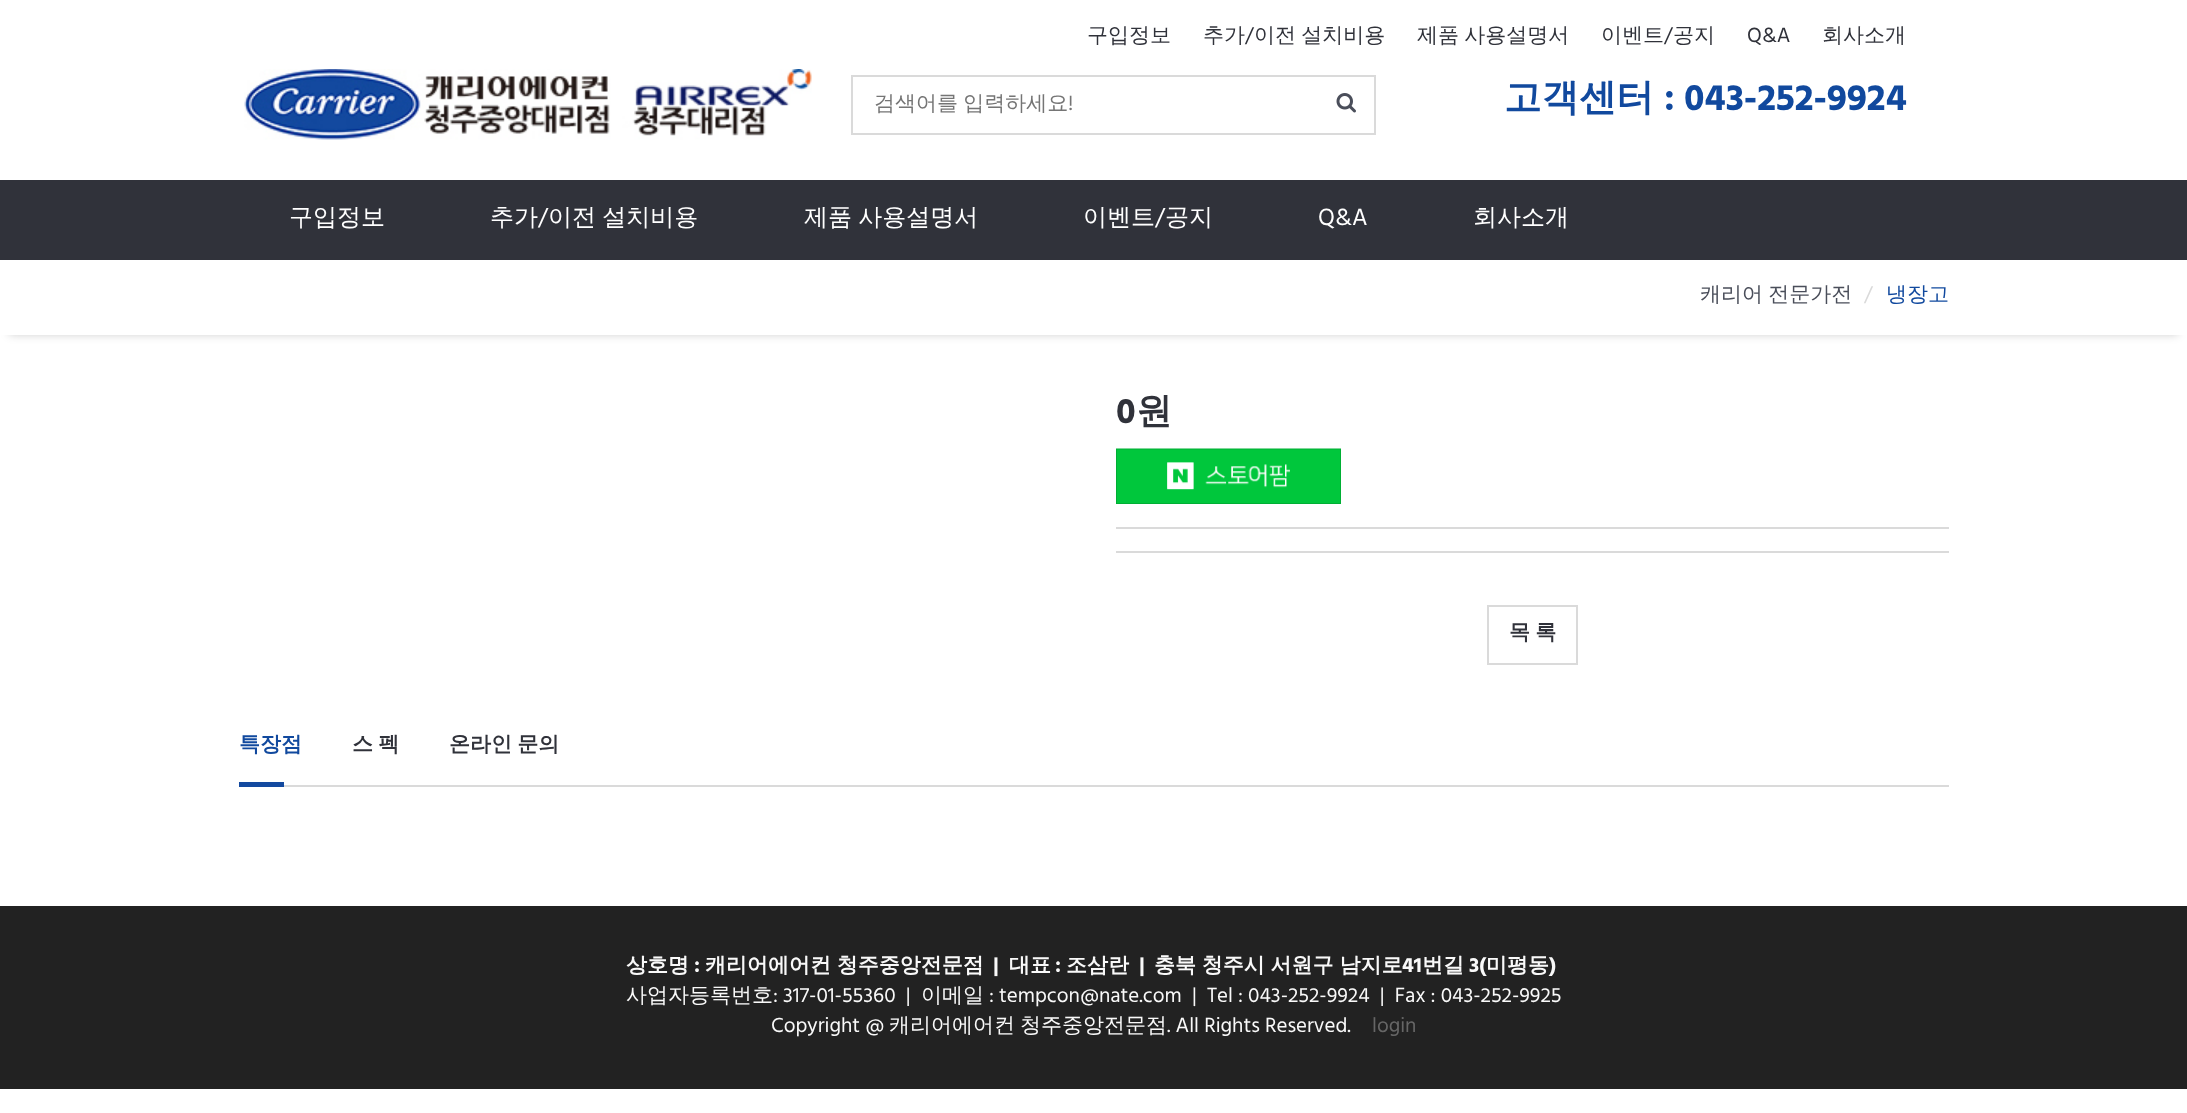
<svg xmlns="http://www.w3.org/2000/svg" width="2187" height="1113">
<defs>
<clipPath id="clip1"><path d="M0 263h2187v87h-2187zm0-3h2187v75h-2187z" clip-rule="evenodd"/></clipPath>
</defs>
<rect width="100%" height="100%" fill="#fff"/>
<text x="1087" y="42" style="font-family:WenQuanYi Zen Hei;font-size:21px;font-weight:500;fill:#30323a">구입정보</text>
<text x="1203" y="42" style="font-family:WenQuanYi Zen Hei;font-size:21px;font-weight:500;fill:#30323a">추가</text>
<text x="1245" y="42" style="font-family:Hind;font-size:21px;fill:#30323a">/</text>
<text x="1254" y="42" word-spacing="-1" style="font-family:WenQuanYi Zen Hei;font-size:21px;font-weight:500;fill:#30323a">이전 설치비용</text>
<text x="1417" y="42" word-spacing="-1" style="font-family:WenQuanYi Zen Hei;font-size:21px;font-weight:500;fill:#30323a">제품 사용설명서</text>
<text x="1601" y="42" style="font-family:WenQuanYi Zen Hei;font-size:21px;font-weight:500;fill:#30323a">이벤트</text>
<text x="1664" y="42" style="font-family:Hind;font-size:21px;fill:#30323a">/</text>
<text x="1673" y="42" style="font-family:WenQuanYi Zen Hei;font-size:21px;font-weight:500;fill:#30323a">공지</text>
<text x="1747" y="42" style="font-family:Hind;font-size:21px;fill:#30323a">Q&amp;A</text>
<text x="1822" y="42" style="font-family:WenQuanYi Zen Hei;font-size:21px;font-weight:500;fill:#30323a">회사소개</text>
<image x="244" y="69" width="568" height="71" href="media/1.png"/>
<rect x="852" y="76" width="523" height="58" fill="none" stroke="#dadada" stroke-width="2"/>
<text x="874" y="110" word-spacing="-1" style="font-family:WenQuanYi Zen Hei;font-size:21px;font-weight:500;fill:#757575">검색어를 입력하세요</text>
<text x="1068" y="110" style="font-family:Hind;font-size:21px;fill:#757575">!</text>
<image x="1336" y="93" width="20" height="20" href="media/2.png"/>
<text x="1504" y="110" style="font-family:WenQuanYi Zen Hei;font-size:37.5px;font-weight:bold;fill:#11499e">고객센터</text>
<text x="1664" y="110" style="font-family:Hind;font-size:37.5px;font-weight:bold;fill:#11499e">: 043-252-9924</text>
<rect y="180" width="2187" height="80" fill="#30323a"/>
<text x="289" y="225" style="font-family:WenQuanYi Zen Hei;font-size:24px;font-weight:500;fill:#fff">구입정보</text>
<text x="490" y="225" style="font-family:WenQuanYi Zen Hei;font-size:24px;font-weight:500;fill:#fff">추가</text>
<text x="538" y="225" style="font-family:Hind;font-size:24px;fill:#fff">/</text>
<text x="548" y="225" word-spacing="-1" style="font-family:WenQuanYi Zen Hei;font-size:24px;font-weight:500;fill:#fff">이전 설치비용</text>
<text x="804" y="225" word-spacing="-1" style="font-family:WenQuanYi Zen Hei;font-size:24px;font-weight:500;fill:#fff">제품 사용설명서</text>
<text x="1083" y="225" style="font-family:WenQuanYi Zen Hei;font-size:24px;font-weight:500;fill:#fff">이벤트</text>
<text x="1155" y="225" style="font-family:Hind;font-size:24px;fill:#fff">/</text>
<text x="1165" y="225" style="font-family:WenQuanYi Zen Hei;font-size:24px;font-weight:500;fill:#fff">공지</text>
<text x="1318" y="225" style="font-family:Hind;font-size:24px;fill:#fff">Q&amp;A</text>
<text x="1473" y="225" style="font-family:WenQuanYi Zen Hei;font-size:24px;font-weight:500;fill:#fff">회사소개</text>
<g clip-path="url(#clip1)">
<rect x="9" y="278" width="2169" height="57" fill="#0000002e" filter="blur(4.5px)"/>
</g>
<text x="1700" y="301" word-spacing="-1" style="font-family:WenQuanYi Zen Hei;font-size:21px;font-weight:500;fill:#4a4e5a">캐리어 전문가전</text>
<text x="1864" y="301" style="font-family:Hind;font-size:21px;fill:#dadada">/</text>
<text x="1886" y="301" style="font-family:WenQuanYi Zen Hei;font-size:21px;font-weight:500;fill:#11499e">냉장고</text>
<text x="1116" y="423" style="font-family:Hind;font-size:36px;font-weight:bold;fill:#30323a">0</text>
<text x="1136" y="423" style="font-family:WenQuanYi Zen Hei;font-size:36px;font-weight:bold;fill:#30323a">원</text>
<image x="1116" y="448" width="225" height="56" href="media/3.png"/>
<rect x="1116" y="527" width="833" height="2" fill="#dadada"/>
<rect x="1116" y="551" width="833" height="2" fill="#dadada"/>
<rect x="1488" y="606" width="89" height="58" fill="none" stroke="#dadada" stroke-width="2"/>
<text x="1509" y="639" word-spacing="-1" style="font-family:WenQuanYi Zen Hei;font-size:21px;font-weight:bold;fill:#30323a">목 록</text>
<rect x="284" y="785" width="1665" height="2" fill="#dadada"/>
<text x="239" y="751" style="font-family:WenQuanYi Zen Hei;font-size:21px;font-weight:bold;fill:#11499e">특장점</text>
<rect x="239" y="782" width="45" height="5" fill="#13499f"/>
<text x="352" y="751" word-spacing="-1" style="font-family:WenQuanYi Zen Hei;font-size:21px;font-weight:bold;fill:#30323a">스 펙</text>
<text x="449" y="751" word-spacing="-1" style="font-family:WenQuanYi Zen Hei;font-size:21px;font-weight:bold;fill:#30323a">온라인 문의</text>
<rect y="906" width="2187" height="183" fill="#222"/>
<text x="626" y="972" style="font-family:WenQuanYi Zen Hei;font-size:21px;font-weight:bold;fill:#f9f9f9">상호명</text>
<text x="694" y="972" style="font-family:Hind;font-size:21px;font-weight:bold;fill:#f9f9f9">:</text>
<text x="705" y="972" word-spacing="-0.5" style="font-family:WenQuanYi Zen Hei;font-size:21px;font-weight:bold;fill:#f9f9f9">캐리어에어컨 청주중앙전문점</text>
<text x="993" y="972" style="font-family:Hind;font-size:21px;font-weight:bold;fill:#f9f9f9">|</text>
<text x="1009" y="972" style="font-family:WenQuanYi Zen Hei;font-size:21px;font-weight:bold;fill:#f9f9f9">대표</text>
<text x="1055" y="972" style="font-family:Hind;font-size:21px;font-weight:bold;fill:#f9f9f9">:</text>
<text x="1066" y="972" style="font-family:WenQuanYi Zen Hei;font-size:21px;font-weight:bold;fill:#f9f9f9">조삼란</text>
<text x="1139" y="972" style="font-family:Hind;font-size:21px;font-weight:bold;fill:#f9f9f9">|</text>
<text x="1154" y="972" word-spacing="-0.5" style="font-family:WenQuanYi Zen Hei;font-size:21px;font-weight:bold;fill:#f9f9f9">충북 청주시 서원구 남지로</text>
<text x="1402" y="972" style="font-family:Hind;font-size:21px;font-weight:bold;fill:#f9f9f9">41</text>
<text x="1422" y="972" style="font-family:WenQuanYi Zen Hei;font-size:21px;font-weight:bold;fill:#f9f9f9">번길</text>
<text x="1469" y="972" style="font-family:Hind;font-size:21px;font-weight:bold;fill:#f9f9f9">3(</text>
<text x="1486" y="972" style="font-family:WenQuanYi Zen Hei;font-size:21px;font-weight:bold;fill:#f9f9f9">미평동</text>
<text x="1549" y="972" style="font-family:Hind;font-size:21px;font-weight:bold;fill:#f9f9f9">)</text>
<text x="626" y="1002" style="font-family:WenQuanYi Zen Hei;font-size:21px;font-weight:500;fill:#f9f9f9">사업자등록번호</text>
<text x="773" y="1002" style="font-family:Hind;font-size:21px;fill:#f9f9f9" xml:space="preserve">: 317-01-55360  |</text>
<text x="921" y="1002" style="font-family:WenQuanYi Zen Hei;font-size:21px;font-weight:500;fill:#f9f9f9">이메일</text>
<text x="989" y="1002" style="font-family:Hind;font-size:21px;fill:#f9f9f9" xml:space="preserve">: tempcon@nate.com  |  Tel : 043-252-9924  |  Fax : 043-252-9925</text>
<text x="771" y="1032" style="font-family:Hind;font-size:21px;fill:#f9f9f9">Copyright @</text>
<text x="889" y="1032" style="font-family:WenQuanYi Zen Hei;font-size:21px;font-weight:500;fill:#f9f9f9">캐리어에어컨</text>
<text x="1020" y="1032" style="font-family:WenQuanYi Zen Hei;font-size:21px;font-weight:500;fill:#f9f9f9">청주중앙전문점</text>
<text x="1167" y="1032" style="font-family:Hind;font-size:21px;fill:#f9f9f9">. All Rights Reserved.</text>
<text x="1372" y="1032" style="font-family:Hind;font-size:21px;fill:#666">login</text>
</svg>
